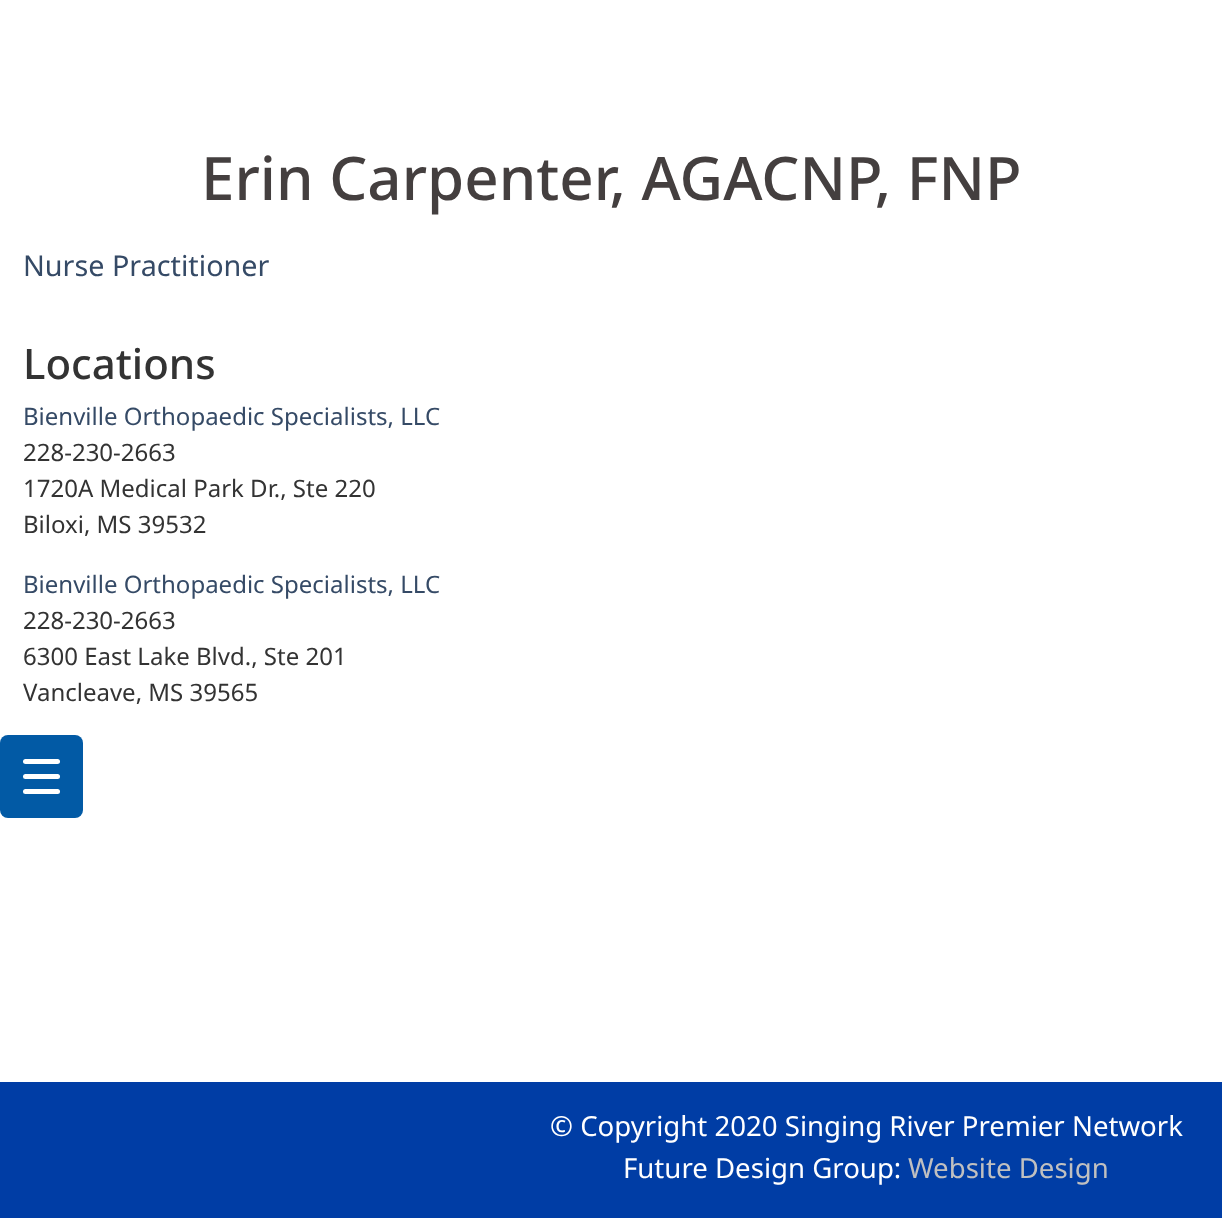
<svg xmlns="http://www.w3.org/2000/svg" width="1222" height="1218">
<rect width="100%" height="100%" fill="#fff"/>
<text x="201" y="200" style="font-family:Noto Sans;font-size:60px;font-weight:500;fill:#443f3f">Erin Carpenter, AGACNP, FNP</text>
<text x="23" y="276" style="font-family:Noto Sans;font-size:28.75px;fill:#354a66">Nurse Practitioner</text>
<text x="23" y="379" style="font-family:Noto Sans;font-size:42px;font-weight:500;fill:#333">Locations</text>
<text x="23" y="425" style="font-family:Noto Sans;font-size:24px;fill:#354a66">Bienville Orthopaedic Specialists, LLC</text>
<text x="23" y="461" style="font-family:Noto Sans;font-size:24px;fill:#333">228-230-2663</text>
<text x="23" y="497" style="font-family:Noto Sans;font-size:24px;fill:#333">1720A Medical Park Dr., Ste 220</text>
<text x="23" y="533" style="font-family:Noto Sans;font-size:24px;fill:#333">Biloxi, MS 39532</text>
<text x="23" y="593" style="font-family:Noto Sans;font-size:24px;fill:#354a66">Bienville Orthopaedic Specialists, LLC</text>
<text x="23" y="629" style="font-family:Noto Sans;font-size:24px;fill:#333">228-230-2663</text>
<text x="23" y="665" style="font-family:Noto Sans;font-size:24px;fill:#333">6300 East Lake Blvd., Ste 201</text>
<text x="23" y="701" style="font-family:Noto Sans;font-size:24px;fill:#333">Vancleave, MS 39565</text>
<rect y="735" width="83" height="83" rx="8" fill="#025aa5"/>
<rect x="23" y="774" width="37" height="5" rx="2.5" fill="#fff"/>
<rect x="23" y="759" width="37" height="5" rx="2.5" fill="#fff"/>
<rect x="23" y="789" width="37" height="5" rx="2.5" fill="#fff"/>
<rect y="1082" width="1222" height="136" fill="#003da5"/>
<text x="550" y="1136" style="font-family:Noto Sans;font-size:27.6px;fill:#fff">© Copyright 2020 Singing River Premier Network</text>
<text x="623" y="1178" style="font-family:Noto Sans;font-size:27.6px;fill:#fff">Future Design Group:</text>
<text x="908" y="1178" style="font-family:Noto Sans;font-size:27.6px;fill:#c0c0c0">Website Design</text>
</svg>
